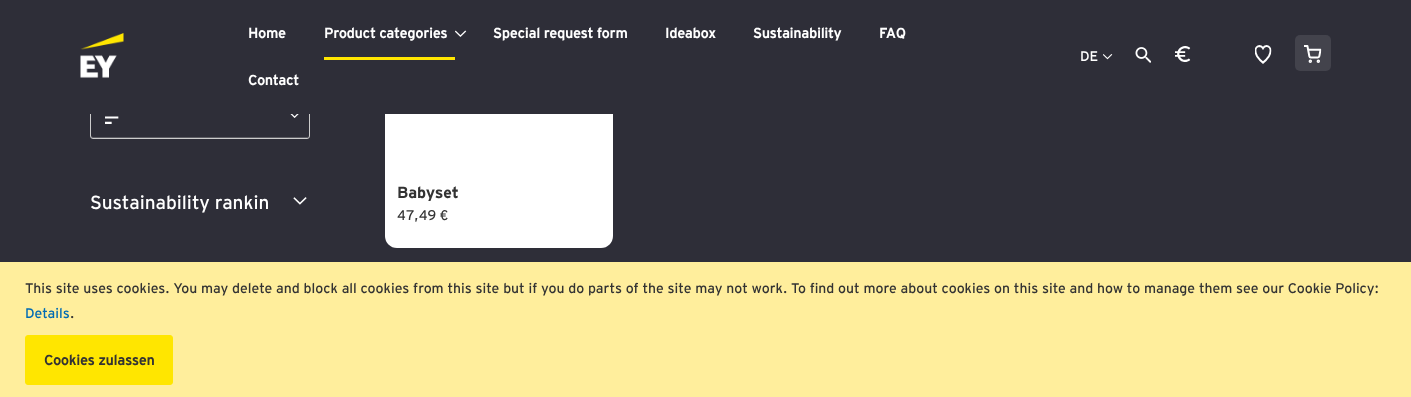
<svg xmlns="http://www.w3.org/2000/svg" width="1411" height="397">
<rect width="100%" height="100%" fill="#2e2e38"/>
<image x="290" y="114" width="9" height="4" href="media/8.png"/>
<path d="M91 135c0 1 0 3 2 3h214l1-1l1-2c0 1-1 2-2 2h-214c-1 0-2-1-2-2z" fill="#5d5d64"/>
<rect x="90.5" y="89.5" width="219" height="49" rx="2.5" fill="none" stroke="#ccc"/>
<rect x="385" y="-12" width="228" height="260" rx="12" fill="#fff"/>
<rect x="90" width="523" height="114" fill="#2e2e38"/>
<image x="80" y="33" width="44" height="45" href="media/1.png"/>
<text x="248" y="38" style="font-family:'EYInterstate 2';font-size:14px;font-weight:bold;fill:#fff">Home</text>
<text x="324" y="38" style="font-family:'EYInterstate 2';font-size:14px;font-weight:bold;fill:#fff">Product categories</text>
<image x="455" y="30" width="12" height="7" href="media/2.png"/>
<rect x="324" y="57" width="131" height="3" fill="#ffe600"/>
<text x="493" y="38" style="font-family:'EYInterstate 2';font-size:14px;font-weight:bold;fill:#fff">Special request form</text>
<text x="665" y="38" style="font-family:'EYInterstate 2';font-size:14px;font-weight:bold;fill:#fff">Ideabox</text>
<text x="753" y="38" style="font-family:'EYInterstate 2';font-size:14px;font-weight:bold;fill:#fff">Sustainability</text>
<text x="879" y="38" style="font-family:'EYInterstate 2';font-size:14px;font-weight:bold;fill:#fff">FAQ</text>
<text x="248" y="85" style="font-family:'EYInterstate 2';font-size:14px;font-weight:bold;fill:#fff">Contact</text>
<text x="1080" y="61" style="font-family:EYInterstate;font-size:14px;fill:#fff">DE</text>
<image x="1103" y="54" width="10" height="6" href="media/3.png"/>
<image x="1135" y="47" width="16" height="16" href="media/4.png"/>
<image x="1175" y="46" width="16" height="16" href="media/5.png"/>
<image x="1255" y="45" width="17" height="19" href="media/6.png"/>
<rect x="1295" y="35" width="36" height="36" rx="5" fill="#43434c"/>
<image x="1304" y="45" width="18" height="18" href="media/7.png"/>
<image x="105" y="116" width="14" height="8" href="media/9.png"/>
<text x="90" y="209" style="font-family:EYInterstate;font-size:19px;fill:#fff">Sustainability rankin</text>
<image x="293" y="197" width="14" height="8" href="media/10.png"/>
<text x="397" y="198" style="font-family:EYInterstate;font-size:16px;font-weight:bold;fill:#333">Babyset</text>
<text x="397" y="220" style="font-family:EYInterstate;font-size:14px;fill:#333">47,49 €</text>
<rect y="262" width="1411" height="135" fill="#ffee9c"/>
<text x="25" y="293" style="font-family:EYInterstate;font-size:14px;fill:#333">This site uses cookies. You may delete and block all cookies from this site but if you do parts of the site may not work. To find out more about cookies on this site and how to manage them see our Cookie Policy:</text>
<text x="25" y="318" style="font-family:EYInterstate;font-size:14px;fill:#006bb4">Details</text>
<text x="70" y="318" style="font-family:EYInterstate;font-size:14px;fill:#333">.</text>
<rect x="25.5" y="335.5" width="147" height="49" rx="2.5" fill="#ffe600" stroke="#ffe600"/>
<text x="44" y="365" style="font-family:'EYInterstate 2';font-size:14px;font-weight:bold;fill:#333">Cookies zulassen</text>
</svg>
